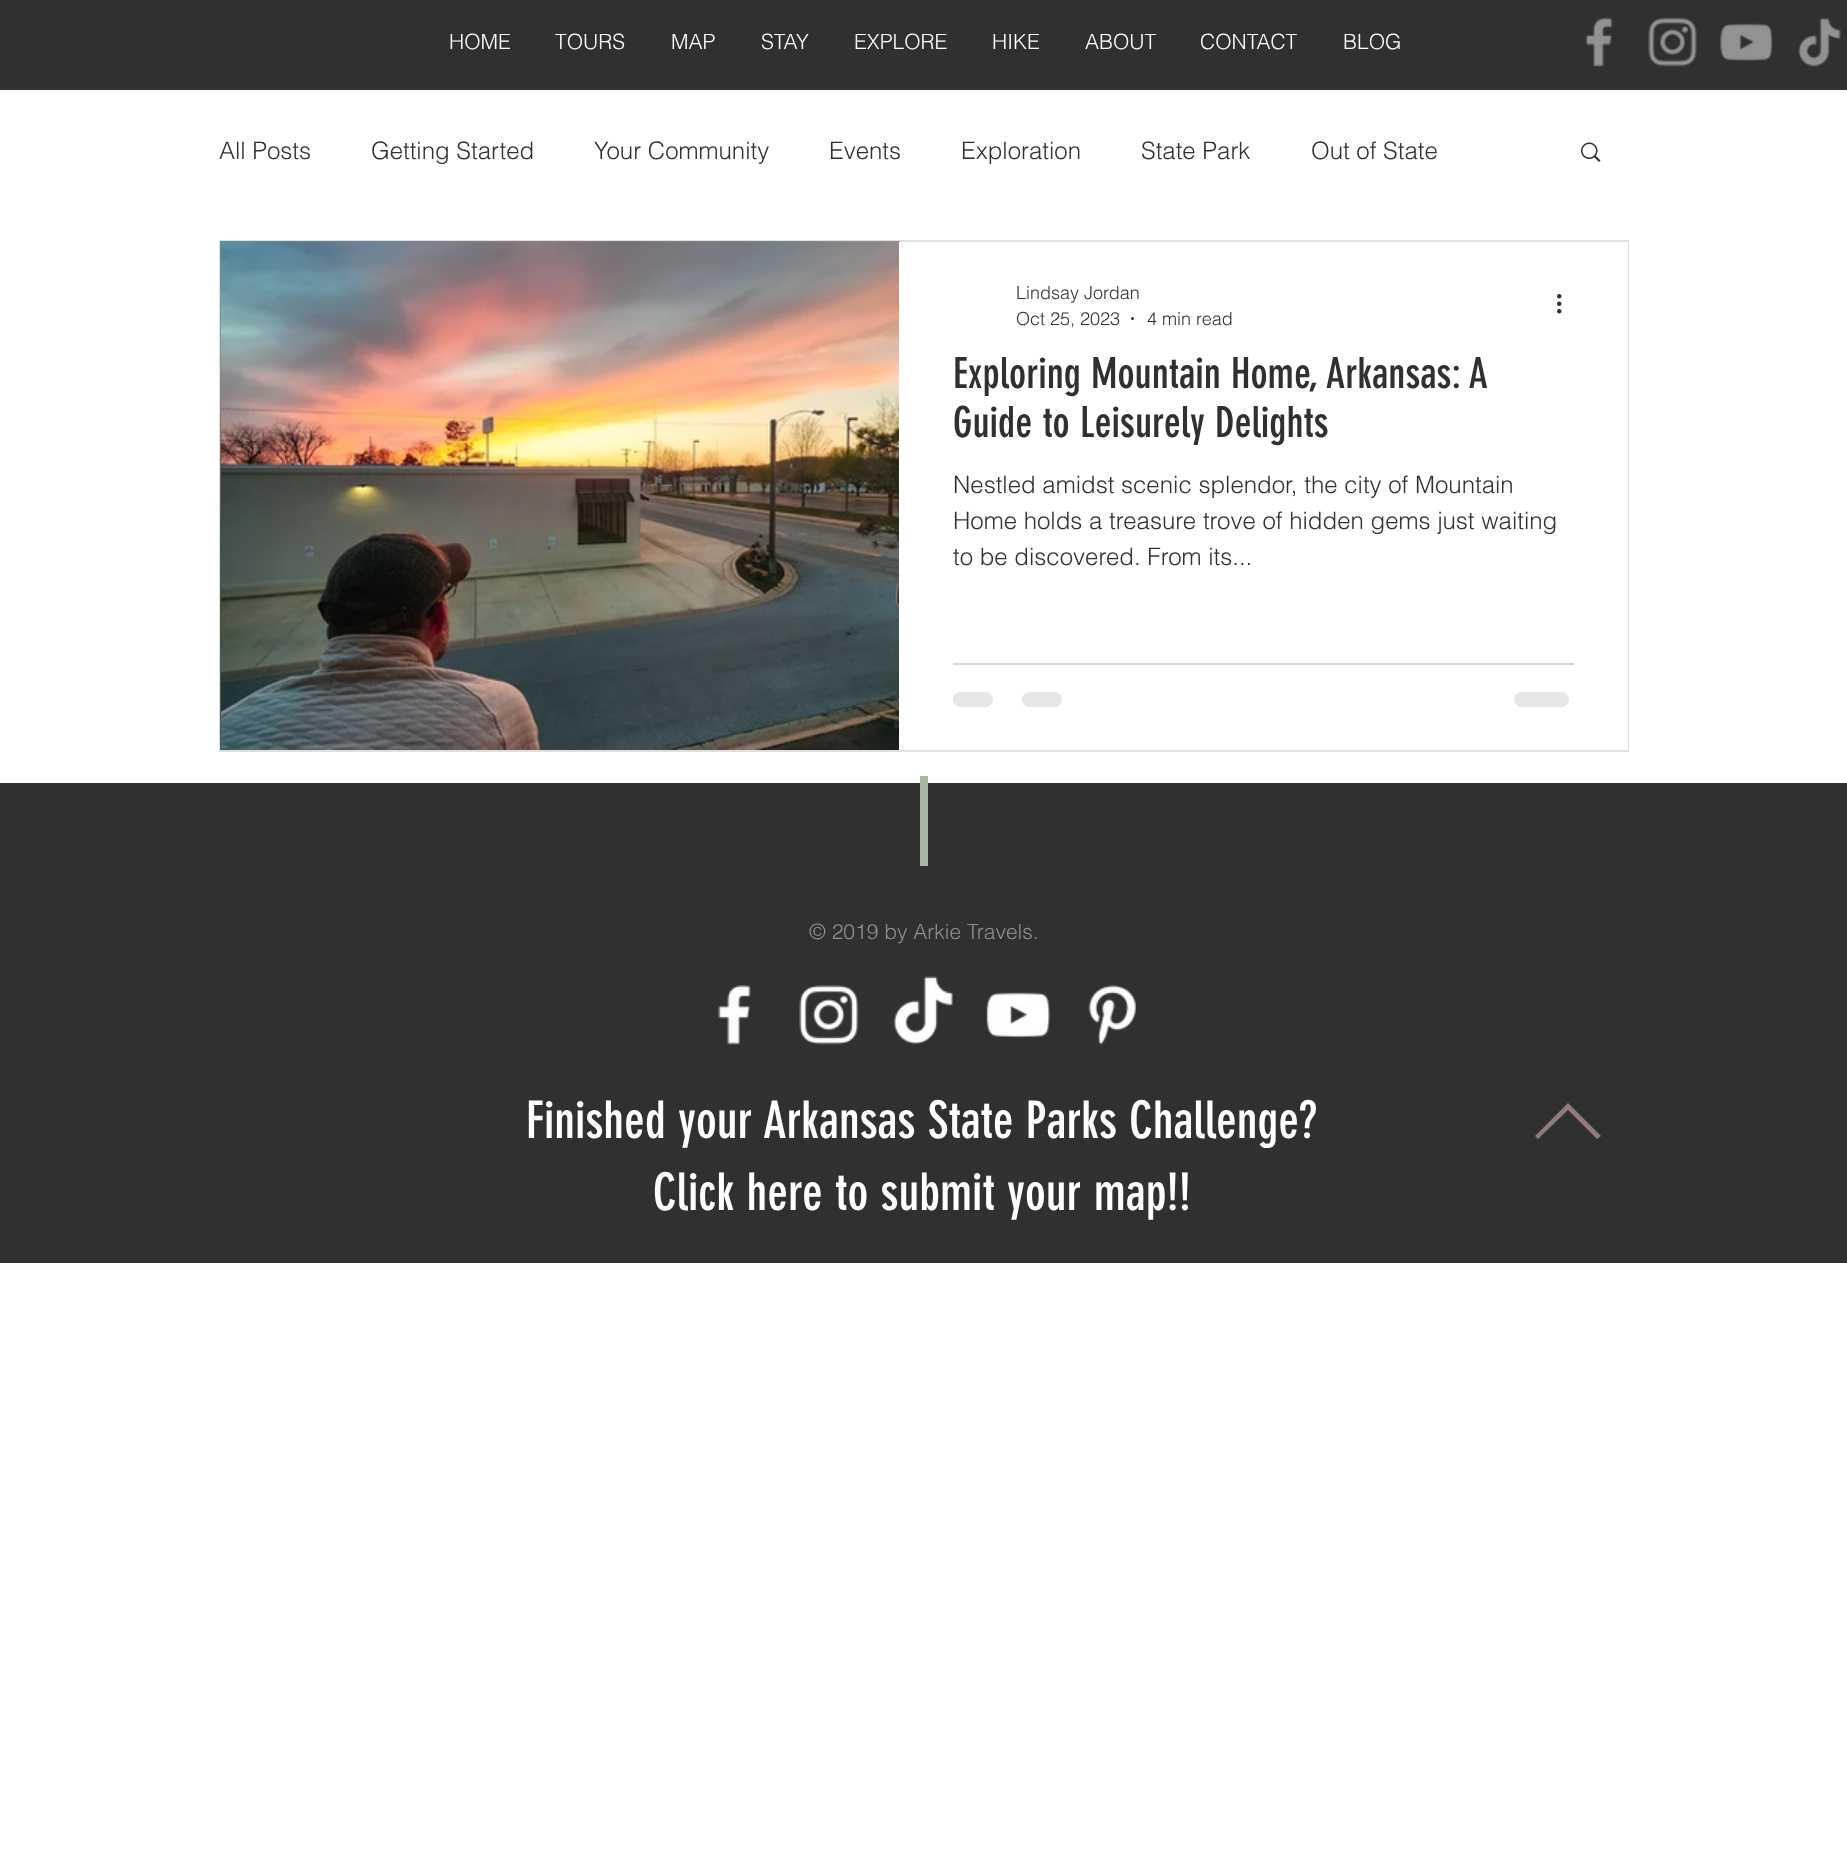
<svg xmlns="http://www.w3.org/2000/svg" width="1847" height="1859">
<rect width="100%" height="100%" fill="#fff"/>
<rect width="1847" height="90" fill="#303030"/>
<text x="449" y="49" style="font-family:helvetica;font-size:21px;font-weight:300;fill:#fff">HOME</text>
<text x="555" y="49" style="font-family:helvetica;font-size:21px;font-weight:300;fill:#fff">TOURS</text>
<text x="671" y="49" style="font-family:helvetica;font-size:21px;font-weight:300;fill:#fff">MAP</text>
<text x="761" y="49" style="font-family:helvetica;font-size:21px;font-weight:300;fill:#fff">STAY</text>
<text x="854" y="49" style="font-family:helvetica;font-size:21px;font-weight:300;fill:#fff">EXPLORE</text>
<text x="992" y="49" style="font-family:helvetica;font-size:21px;font-weight:300;fill:#fff">HIKE</text>
<text x="1085" y="49" style="font-family:helvetica;font-size:21px;font-weight:300;fill:#fff">ABOUT</text>
<text x="1200" y="49" style="font-family:helvetica;font-size:21px;font-weight:300;fill:#fff">CONTACT</text>
<text x="1343" y="49" style="font-family:helvetica;font-size:21px;font-weight:300;fill:#fff">BLOG</text>
<image x="1585" y="17" width="28" height="50" href="media/1.png"/>
<image x="1648" y="17" width="49" height="50" href="media/2.png"/>
<image x="1720" y="23" width="53" height="38" href="media/3.png"/>
<image x="1798" y="17" width="43" height="50" href="media/4.png"/>
<text x="219" y="159" style="font-family:helvetica;font-size:24px;font-weight:300;fill:#303030">All Posts</text>
<text x="371" y="159" style="font-family:helvetica;font-size:24px;font-weight:300;fill:#303030">Getting Started</text>
<text x="594" y="159" style="font-family:helvetica;font-size:24px;font-weight:300;fill:#303030">Your Community</text>
<text x="829" y="159" style="font-family:helvetica;font-size:24px;font-weight:300;fill:#303030">Events</text>
<text x="961" y="159" style="font-family:helvetica;font-size:24px;font-weight:300;fill:#303030">Exploration</text>
<text x="1141" y="159" style="font-family:helvetica;font-size:24px;font-weight:300;fill:#303030">State Park</text>
<text x="1311" y="159" style="font-family:helvetica;font-size:24px;font-weight:300;fill:#303030">Out of State</text>
<image x="1581" y="142" width="20" height="20" href="media/5.png"/>
<rect x="220" y="241" width="1408" height="510" fill="none" stroke="#dfdfdf" stroke-width="2"/>
<image x="220" y="241" width="680" height="509" href="media/6.png"/>
<image x="221" y="242" width="678" height="508" href="media/7.png"/>
<rect x="899" y="242" width="729" height="508" fill="#fff"/>
<text x="1016" y="299" style="font-family:helvetica;font-size:18px;font-weight:300;fill:#303030">Lindsay Jordan</text>
<text x="1016" y="325" style="font-family:helvetica;font-size:18px;font-weight:300;fill:#303030">Oct 25, 2023</text>
<circle cx="1132.5" cy="318.5" r="1.5" fill="#303030"/>
<text x="1147" y="325" style="font-family:helvetica;font-size:18px;font-weight:300;fill:#303030">4 min read</text>
<image x="1557" y="294" width="5" height="20" href="media/8.png"/>
<text x="953" y="388" style="font-family:'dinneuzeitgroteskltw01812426';font-size:42px;fill:#303030">Exploring Mountain Home, Arkansas: A</text>
<text x="953" y="437" style="font-family:'dinneuzeitgroteskltw01812426';font-size:42px;fill:#303030">Guide to Leisurely Delights</text>
<text x="953" y="493" style="font-family:helvetica;font-size:24px;font-weight:300;fill:#303030">Nestled amidst scenic splendor, the city of Mountain</text>
<text x="953" y="529" style="font-family:helvetica;font-size:24px;font-weight:300;fill:#303030">Home holds a treasure trove of hidden gems just waiting</text>
<text x="953" y="565" style="font-family:helvetica;font-size:24px;font-weight:300;fill:#303030">to be discovered. From its...</text>
<rect x="953" y="663" width="621" height="2" fill="#d6d6d6"/>
<rect x="953" y="692" width="40" height="15" rx="7.5" fill="#e6e6e6"/>
<rect x="1022" y="692" width="40" height="15" rx="7.5" fill="#e6e6e6"/>
<rect x="1514" y="692" width="55" height="15" rx="7.5" fill="#e6e6e6"/>
<rect y="783" width="1847" height="480" fill="#303030"/>
<rect x="920" y="776" width="8" height="90" fill="#a9b6a4"/>
<text x="809" y="939" style="font-family:helvetica;font-size:21px;font-weight:300;fill:#909090">© 2019 by Arkie Travels.</text>
<image x="718" y="985" width="33" height="60" href="media/9.png"/>
<image x="799" y="985" width="60" height="60" href="media/10.png"/>
<image x="893" y="976" width="60" height="69" href="media/11.png"/>
<image x="986" y="992" width="65" height="46" href="media/12.png"/>
<image x="1088" y="985" width="49" height="60" href="media/13.png"/>
<text x="526" y="1138" style="font-family:'dinneuzeitgroteskltw01812426';font-size:51px;fill:#fff">Finished your Arkansas State Parks Challenge?</text>
<text x="653" y="1210" style="font-family:'dinneuzeitgroteskltw01812426';font-size:51px;fill:#fff">Click here to submit your map!!</text>
<path d="M1535 1136l3 3l30-29l29 29l4-3l-33-33z" fill="#93797a"/>
</svg>
